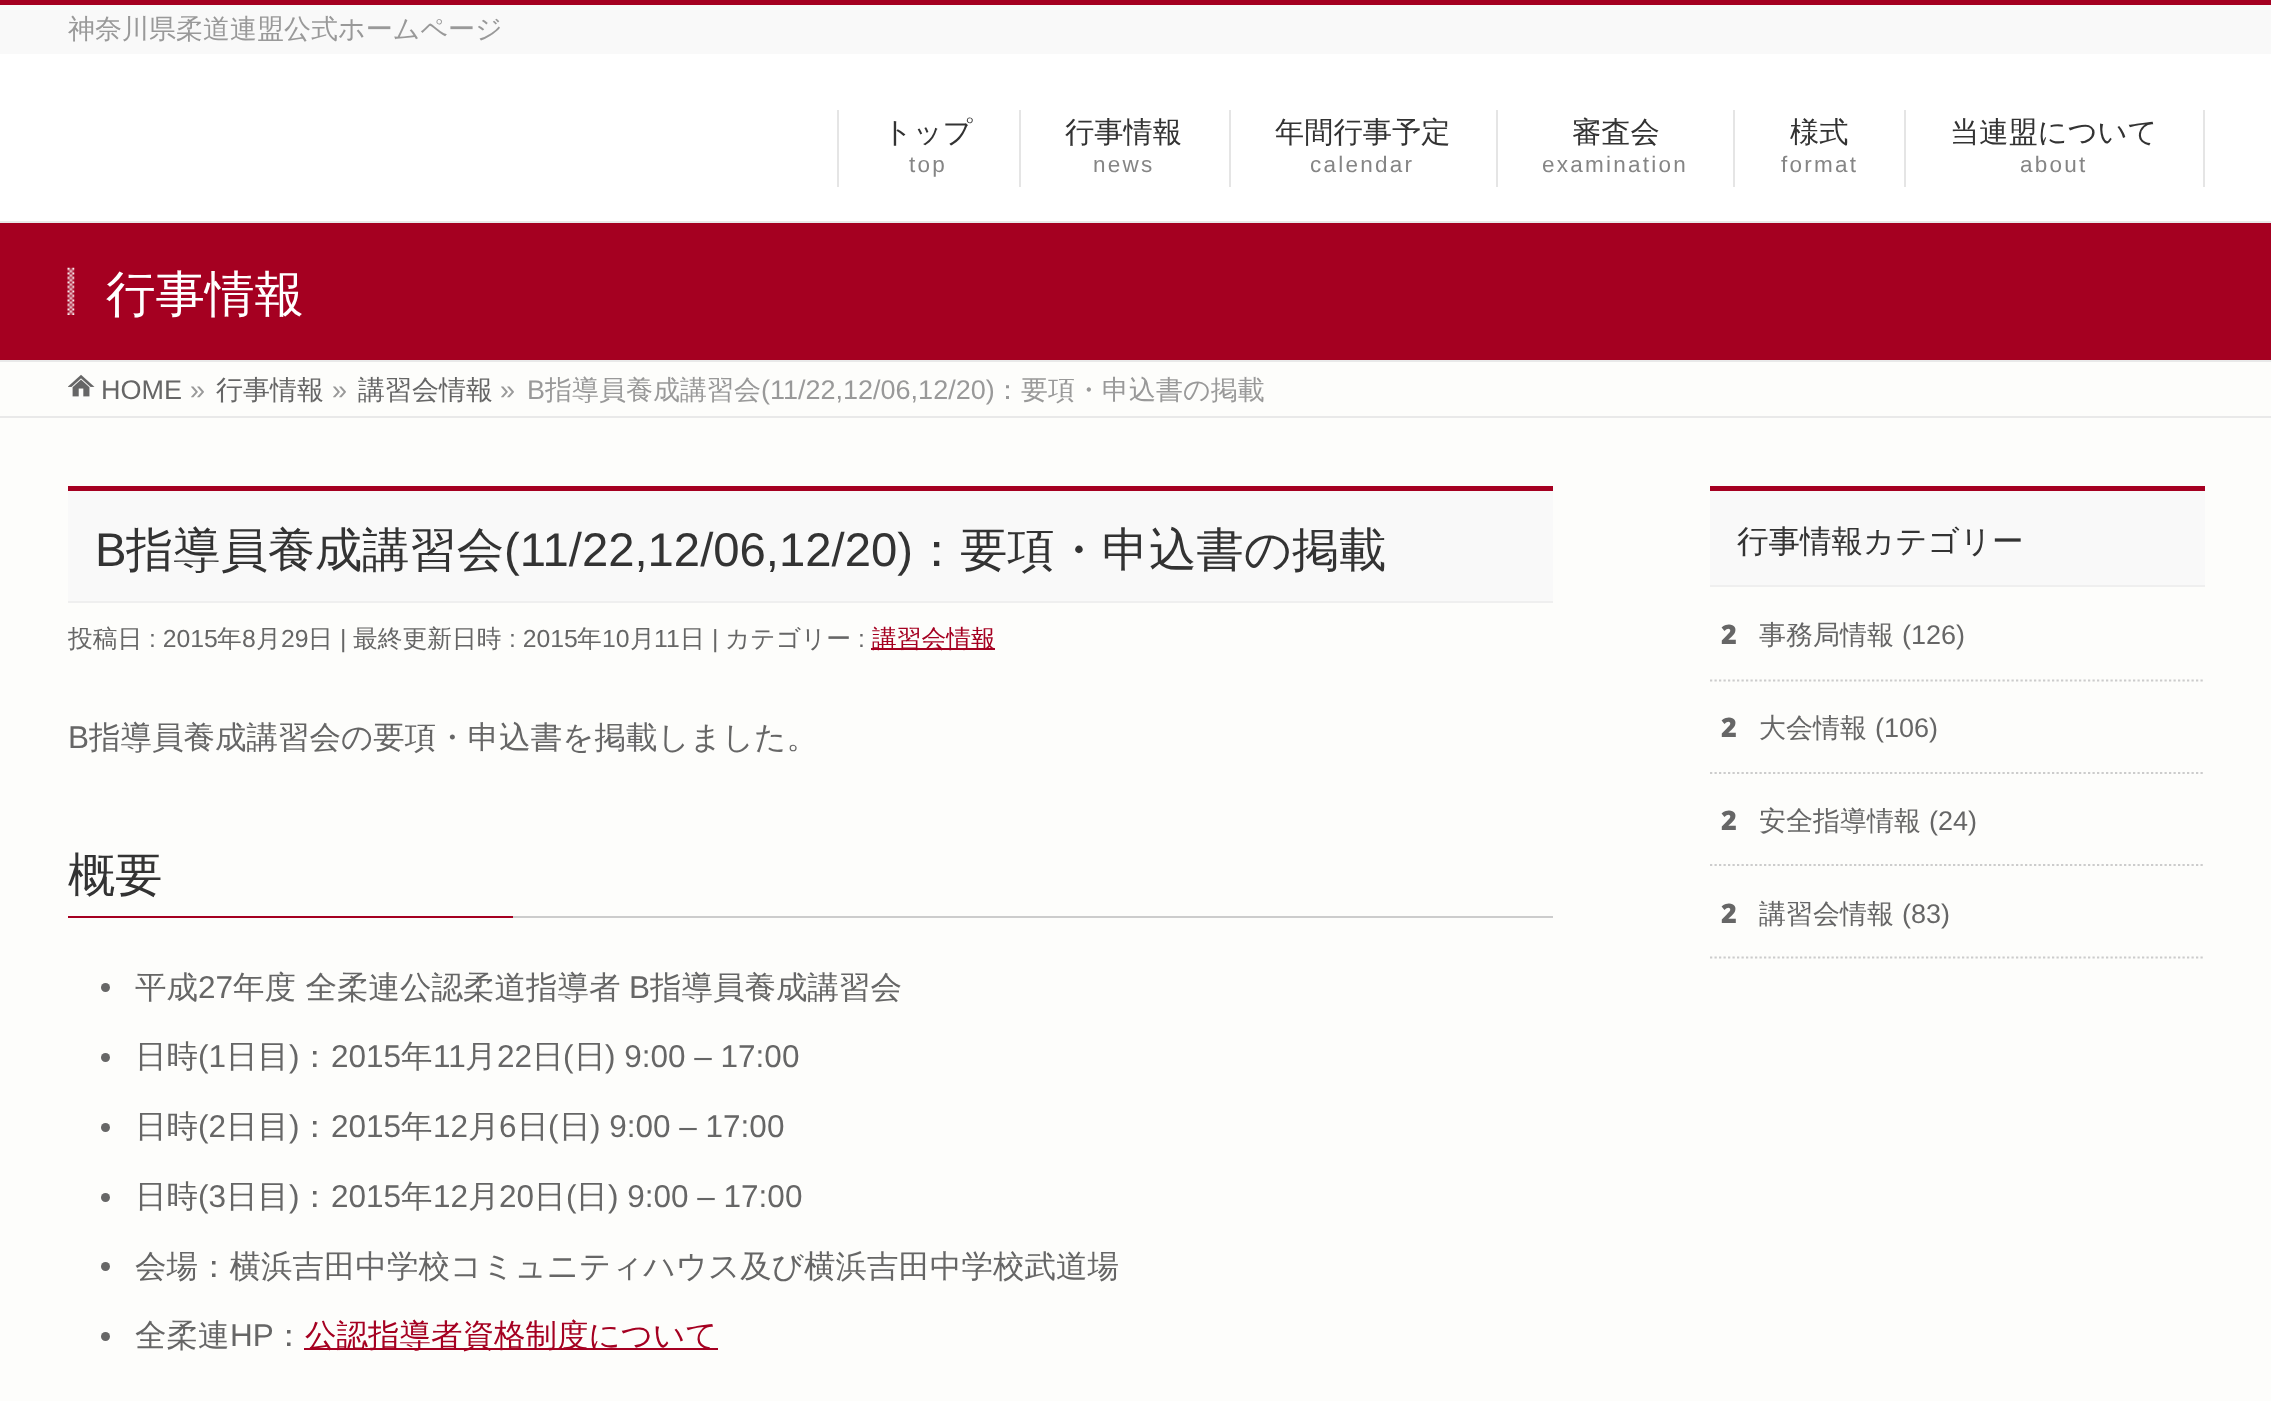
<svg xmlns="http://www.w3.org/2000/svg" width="2271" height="1401">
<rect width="100%" height="100%" fill="#fdfdfb"/>
<rect y="5" width="2271" height="49" fill="#f9f9f9"/>
<rect width="2271" height="5" fill="#a50021"/>
<text x="68" y="38" style="font-family:WenQuanYi Zen Hei;font-size:27px;font-weight:500;fill:#999">神奈川県柔道連盟公式ホームページ</text>
<rect y="54" width="2271" height="167" fill="#fff"/>
<rect x="1019" y="110" width="2" height="77" fill="#e5e5e5"/>
<rect x="837" y="110" width="2" height="77" fill="#e5e5e5"/>
<text x="883" y="142" style="font-family:WenQuanYi Zen Hei;font-size:29.25px;font-weight:500;fill:#333">トップ</text>
<text x="909" y="172" style="font-family:Liberation Sans;font-size:22.5px;letter-spacing:2.25px;fill:#858585">top</text>
<rect x="1229" y="110" width="2" height="77" fill="#e5e5e5"/>
<text x="1065" y="142" style="font-family:WenQuanYi Zen Hei;font-size:29.25px;font-weight:500;fill:#333">行事情報</text>
<text x="1093" y="172" style="font-family:Liberation Sans;font-size:22.5px;letter-spacing:2.25px;fill:#858585">news</text>
<rect x="1496" y="110" width="2" height="77" fill="#e5e5e5"/>
<text x="1275" y="142" style="font-family:WenQuanYi Zen Hei;font-size:29.25px;font-weight:500;fill:#333">年間行事予定</text>
<text x="1310" y="172" style="font-family:Liberation Sans;font-size:22.5px;letter-spacing:2.25px;fill:#858585">calendar</text>
<rect x="1733" y="110" width="2" height="77" fill="#e5e5e5"/>
<text x="1572" y="142" style="font-family:WenQuanYi Zen Hei;font-size:29.25px;font-weight:500;fill:#333">審査会</text>
<text x="1542" y="172" style="font-family:Liberation Sans;font-size:22.5px;letter-spacing:2.25px;fill:#858585">examination</text>
<rect x="1904" y="110" width="2" height="77" fill="#e5e5e5"/>
<text x="1790" y="142" style="font-family:WenQuanYi Zen Hei;font-size:29.25px;font-weight:500;fill:#333">様式</text>
<text x="1781" y="172" style="font-family:Liberation Sans;font-size:22.5px;letter-spacing:2.25px;fill:#858585">format</text>
<rect x="2203" y="110" width="2" height="77" fill="#e5e5e5"/>
<text x="1950" y="142" style="font-family:WenQuanYi Zen Hei;font-size:29.25px;font-weight:500;fill:#333">当連盟について</text>
<text x="2020" y="172" style="font-family:Liberation Sans;font-size:22.5px;letter-spacing:2.25px;fill:#858585">about</text>
<rect y="223" width="2271" height="137" fill="#a50021"/>
<rect y="221" width="2271" height="2" fill="#e9e9e9"/>
<rect y="360" width="2271" height="2" fill="#e9e9e9"/>
<image x="67" y="267" width="8" height="48" href="media/1.png"/>
<text x="106" y="311" style="font-family:WenQuanYi Zen Hei;font-size:49.5px;font-weight:500;fill:#fff">行事情報</text>
<image x="68" y="374" width="27" height="23" href="media/2.png"/>
<text x="101" y="399" style="font-family:Liberation Sans;font-size:27px;fill:#666">HOME</text>
<text x="190" y="399" style="font-family:Liberation Sans;font-size:27px;fill:#999">»</text>
<text x="216" y="399" style="font-family:WenQuanYi Zen Hei;font-size:27px;font-weight:500;fill:#666">行事情報</text>
<text x="332" y="399" style="font-family:Liberation Sans;font-size:27px;fill:#999">»</text>
<text x="358" y="399" style="font-family:WenQuanYi Zen Hei;font-size:27px;font-weight:500;fill:#666">講習会情報</text>
<text x="500" y="399" style="font-family:Liberation Sans;font-size:27px;fill:#999">»</text>
<text x="527" y="399" style="font-family:Liberation Sans;font-size:27px;fill:#999">B</text>
<text x="545" y="399" style="font-family:WenQuanYi Zen Hei;font-size:27px;font-weight:500;fill:#999">指導員養成講習会</text>
<text x="761" y="399" style="font-family:Liberation Sans;font-size:27px;fill:#999">(11/22,12/06,12/20)</text>
<text x="994" y="399" style="font-family:WenQuanYi Zen Hei;font-size:27px;font-weight:500;fill:#999">：要項・申込書の掲載</text>
<rect y="416" width="2271" height="2" fill="#e9e9e9"/>
<rect x="68" y="491" width="1485" height="110" fill="#f9f9f9"/>
<rect x="68" y="486" width="1485" height="5" fill="#a50021"/>
<rect x="68" y="601" width="1485" height="2" fill="#efefef"/>
<text x="95" y="566" style="font-family:Liberation Sans;font-size:47.25px;fill:#333">B</text>
<text x="126" y="566" style="font-family:WenQuanYi Zen Hei;font-size:47.25px;font-weight:500;fill:#333">指導員養成講習会</text>
<text x="504" y="566" style="font-family:Liberation Sans;font-size:47.25px;fill:#333">(11/22,12/06,12/20)</text>
<text x="913" y="566" style="font-family:WenQuanYi Zen Hei;font-size:47.25px;font-weight:500;fill:#333">：要項・申込書の掲載</text>
<text x="68" y="647" style="font-family:WenQuanYi Zen Hei;font-size:24.75px;font-weight:500;fill:#666">投稿日</text>
<text x="149" y="647" style="font-family:Liberation Sans;font-size:24.75px;fill:#666">: 2015</text>
<text x="217" y="647" style="font-family:WenQuanYi Zen Hei;font-size:24.75px;font-weight:500;fill:#666">年</text>
<text x="242" y="647" style="font-family:Liberation Sans;font-size:24.75px;fill:#666">8</text>
<text x="256" y="647" style="font-family:WenQuanYi Zen Hei;font-size:24.75px;font-weight:500;fill:#666">月</text>
<text x="281" y="647" style="font-family:Liberation Sans;font-size:24.75px;fill:#666">29</text>
<text x="308" y="647" style="font-family:WenQuanYi Zen Hei;font-size:24.75px;font-weight:500;fill:#666">日</text>
<text x="340" y="647" style="font-family:Liberation Sans;font-size:24.75px;fill:#666">|</text>
<text x="353" y="647" style="font-family:WenQuanYi Zen Hei;font-size:24.75px;font-weight:500;fill:#666">最終更新日時</text>
<text x="509" y="647" style="font-family:Liberation Sans;font-size:24.75px;fill:#666">: 2015</text>
<text x="577" y="647" style="font-family:WenQuanYi Zen Hei;font-size:24.75px;font-weight:500;fill:#666">年</text>
<text x="602" y="647" style="font-family:Liberation Sans;font-size:24.75px;fill:#666">10</text>
<text x="630" y="647" style="font-family:WenQuanYi Zen Hei;font-size:24.75px;font-weight:500;fill:#666">月</text>
<text x="654" y="647" style="font-family:Liberation Sans;font-size:24.75px;fill:#666">11</text>
<text x="680" y="647" style="font-family:WenQuanYi Zen Hei;font-size:24.75px;font-weight:500;fill:#666">日</text>
<text x="712" y="647" style="font-family:Liberation Sans;font-size:24.75px;fill:#666">|</text>
<text x="725" y="647" style="font-family:WenQuanYi Zen Hei;font-size:24.75px;font-weight:500;fill:#666">カテゴリー</text>
<text x="858" y="647" style="font-family:Liberation Sans;font-size:24.75px;fill:#666">:</text>
<rect x="871" y="648" width="124" height="2" fill="#a50021"/>
<text x="872" y="647" style="font-family:WenQuanYi Zen Hei;font-size:24.75px;font-weight:500;fill:#a50021">講習会情報</text>
<text x="68" y="748" style="font-family:Liberation Sans;font-size:31.5px;fill:#666">B</text>
<text x="89" y="748" style="font-family:WenQuanYi Zen Hei;font-size:31.5px;font-weight:500;fill:#666">指導員養成講習会の要項・申込書を掲載しました。</text>
<rect x="513" y="916" width="1040" height="2" fill="#ccc"/>
<text x="68" y="891" style="font-family:WenQuanYi Zen Hei;font-size:47.25px;font-weight:500;fill:#333">概要</text>
<rect x="68" y="916" width="445" height="2" fill="#a50021"/>
<circle cx="105.5" cy="987.5" r="4.5" fill="#666"/>
<text x="135" y="998" style="font-family:WenQuanYi Zen Hei;font-size:31.5px;font-weight:500;fill:#666">平成</text>
<text x="198" y="998" style="font-family:Liberation Sans;font-size:31.5px;fill:#666">27</text>
<text x="233" y="998" style="font-family:WenQuanYi Zen Hei;font-size:31.5px;font-weight:500;fill:#666">年度 全柔連公認柔道指導者</text>
<text x="629" y="998" style="font-family:Liberation Sans;font-size:31.5px;fill:#666">B</text>
<text x="650" y="998" style="font-family:WenQuanYi Zen Hei;font-size:31.5px;font-weight:500;fill:#666">指導員養成講習会</text>
<circle cx="105.5" cy="1057.5" r="4.5" fill="#666"/>
<text x="135" y="1067" style="font-family:WenQuanYi Zen Hei;font-size:31.5px;font-weight:500;fill:#666">日時</text>
<text x="198" y="1067" style="font-family:Liberation Sans;font-size:31.5px;fill:#666">(1</text>
<text x="226" y="1067" style="font-family:WenQuanYi Zen Hei;font-size:31.5px;font-weight:500;fill:#666">日目</text>
<text x="289" y="1067" style="font-family:Liberation Sans;font-size:31.5px;fill:#666">)</text>
<text x="299" y="1067" style="font-family:WenQuanYi Zen Hei;font-size:31.5px;font-weight:500;fill:#666">：</text>
<text x="331" y="1067" style="font-family:Liberation Sans;font-size:31.5px;fill:#666">2015</text>
<text x="401" y="1067" style="font-family:WenQuanYi Zen Hei;font-size:31.5px;font-weight:500;fill:#666">年</text>
<text x="433" y="1067" style="font-family:Liberation Sans;font-size:31.5px;fill:#666">11</text>
<text x="465" y="1067" style="font-family:WenQuanYi Zen Hei;font-size:31.5px;font-weight:500;fill:#666">月</text>
<text x="497" y="1067" style="font-family:Liberation Sans;font-size:31.5px;fill:#666">22</text>
<text x="532" y="1067" style="font-family:WenQuanYi Zen Hei;font-size:31.5px;font-weight:500;fill:#666">日</text>
<text x="563" y="1067" style="font-family:Liberation Sans;font-size:31.5px;fill:#666">(</text>
<text x="574" y="1067" style="font-family:WenQuanYi Zen Hei;font-size:31.5px;font-weight:500;fill:#666">日</text>
<text x="605" y="1067" style="font-family:Liberation Sans;font-size:31.5px;fill:#666">) 9:00 – 17:00</text>
<circle cx="105.5" cy="1127.5" r="4.5" fill="#666"/>
<text x="135" y="1137" style="font-family:WenQuanYi Zen Hei;font-size:31.5px;font-weight:500;fill:#666">日時</text>
<text x="198" y="1137" style="font-family:Liberation Sans;font-size:31.5px;fill:#666">(2</text>
<text x="226" y="1137" style="font-family:WenQuanYi Zen Hei;font-size:31.5px;font-weight:500;fill:#666">日目</text>
<text x="289" y="1137" style="font-family:Liberation Sans;font-size:31.5px;fill:#666">)</text>
<text x="299" y="1137" style="font-family:WenQuanYi Zen Hei;font-size:31.5px;font-weight:500;fill:#666">：</text>
<text x="331" y="1137" style="font-family:Liberation Sans;font-size:31.5px;fill:#666">2015</text>
<text x="401" y="1137" style="font-family:WenQuanYi Zen Hei;font-size:31.5px;font-weight:500;fill:#666">年</text>
<text x="433" y="1137" style="font-family:Liberation Sans;font-size:31.5px;fill:#666">12</text>
<text x="468" y="1137" style="font-family:WenQuanYi Zen Hei;font-size:31.5px;font-weight:500;fill:#666">月</text>
<text x="499" y="1137" style="font-family:Liberation Sans;font-size:31.5px;fill:#666">6</text>
<text x="517" y="1137" style="font-family:WenQuanYi Zen Hei;font-size:31.5px;font-weight:500;fill:#666">日</text>
<text x="548" y="1137" style="font-family:Liberation Sans;font-size:31.5px;fill:#666">(</text>
<text x="559" y="1137" style="font-family:WenQuanYi Zen Hei;font-size:31.5px;font-weight:500;fill:#666">日</text>
<text x="590" y="1137" style="font-family:Liberation Sans;font-size:31.5px;fill:#666">) 9:00 – 17:00</text>
<circle cx="105.5" cy="1197.5" r="4.5" fill="#666"/>
<text x="135" y="1207" style="font-family:WenQuanYi Zen Hei;font-size:31.5px;font-weight:500;fill:#666">日時</text>
<text x="198" y="1207" style="font-family:Liberation Sans;font-size:31.5px;fill:#666">(3</text>
<text x="226" y="1207" style="font-family:WenQuanYi Zen Hei;font-size:31.5px;font-weight:500;fill:#666">日目</text>
<text x="289" y="1207" style="font-family:Liberation Sans;font-size:31.5px;fill:#666">)</text>
<text x="299" y="1207" style="font-family:WenQuanYi Zen Hei;font-size:31.5px;font-weight:500;fill:#666">：</text>
<text x="331" y="1207" style="font-family:Liberation Sans;font-size:31.5px;fill:#666">2015</text>
<text x="401" y="1207" style="font-family:WenQuanYi Zen Hei;font-size:31.5px;font-weight:500;fill:#666">年</text>
<text x="433" y="1207" style="font-family:Liberation Sans;font-size:31.5px;fill:#666">12</text>
<text x="468" y="1207" style="font-family:WenQuanYi Zen Hei;font-size:31.5px;font-weight:500;fill:#666">月</text>
<text x="499" y="1207" style="font-family:Liberation Sans;font-size:31.5px;fill:#666">20</text>
<text x="534" y="1207" style="font-family:WenQuanYi Zen Hei;font-size:31.5px;font-weight:500;fill:#666">日</text>
<text x="566" y="1207" style="font-family:Liberation Sans;font-size:31.5px;fill:#666">(</text>
<text x="576" y="1207" style="font-family:WenQuanYi Zen Hei;font-size:31.5px;font-weight:500;fill:#666">日</text>
<text x="608" y="1207" style="font-family:Liberation Sans;font-size:31.5px;fill:#666">) 9:00 – 17:00</text>
<circle cx="105.5" cy="1266.5" r="4.5" fill="#666"/>
<text x="135" y="1277" style="font-family:WenQuanYi Zen Hei;font-size:31.5px;font-weight:500;fill:#666">会場：横浜吉田中学校コミュニティハウス及び横浜吉田中学校武道場</text>
<circle cx="105.5" cy="1336.5" r="4.5" fill="#666"/>
<text x="135" y="1346" style="font-family:WenQuanYi Zen Hei;font-size:31.5px;font-weight:500;fill:#666">全柔連</text>
<text x="230" y="1346" style="font-family:Liberation Sans;font-size:31.5px;fill:#666">HP</text>
<text x="273" y="1346" style="font-family:WenQuanYi Zen Hei;font-size:31.5px;font-weight:500;fill:#666">：</text>
<rect x="304" y="1348" width="414" height="2" fill="#a50021"/>
<text x="305" y="1346" style="font-family:WenQuanYi Zen Hei;font-size:31.5px;font-weight:500;fill:#a50021">公認指導者資格制度について</text>
<rect x="1710" y="491" width="495" height="94" fill="#f9f9f9"/>
<rect x="1710" y="486" width="495" height="5" fill="#a50021"/>
<rect x="1710" y="585" width="495" height="2" fill="#efefef"/>
<text x="1737" y="552" style="font-family:WenQuanYi Zen Hei;font-size:31.5px;font-weight:500;fill:#333">行事情報カテゴリー</text>
<path d="M1710 680.5h495" fill="none" stroke="#ccc" stroke-width="2.2" stroke-dasharray="2.25 2.25"/>
<text x="1721" y="644" style="font-family:Noto Sans;font-size:27px;font-weight:900;fill:#666">2</text>
<text x="1759" y="644" style="font-family:WenQuanYi Zen Hei;font-size:27px;font-weight:500;fill:#666">事務局情報</text>
<text x="1902" y="644" style="font-family:Liberation Sans;font-size:27px;fill:#666">(126)</text>
<path d="M1710 773h495" fill="none" stroke="#ccc" stroke-width="2.2" stroke-dasharray="2.25 2.25"/>
<text x="1721" y="737" style="font-family:Noto Sans;font-size:27px;font-weight:900;fill:#666">2</text>
<text x="1759" y="737" style="font-family:WenQuanYi Zen Hei;font-size:27px;font-weight:500;fill:#666">大会情報</text>
<text x="1875" y="737" style="font-family:Liberation Sans;font-size:27px;fill:#666">(106)</text>
<path d="M1710 865h495" fill="none" stroke="#ccc" stroke-width="2.2" stroke-dasharray="2.25 2.25"/>
<text x="1721" y="830" style="font-family:Noto Sans;font-size:27px;font-weight:900;fill:#666">2</text>
<text x="1759" y="830" style="font-family:WenQuanYi Zen Hei;font-size:27px;font-weight:500;fill:#666">安全指導情報</text>
<text x="1929" y="830" style="font-family:Liberation Sans;font-size:27px;fill:#666">(24)</text>
<path d="M1710 957.5h495" fill="none" stroke="#ccc" stroke-width="2.2" stroke-dasharray="2.25 2.25"/>
<text x="1721" y="923" style="font-family:Noto Sans;font-size:27px;font-weight:900;fill:#666">2</text>
<text x="1759" y="923" style="font-family:WenQuanYi Zen Hei;font-size:27px;font-weight:500;fill:#666">講習会情報</text>
<text x="1902" y="923" style="font-family:Liberation Sans;font-size:27px;fill:#666">(83)</text>
</svg>
